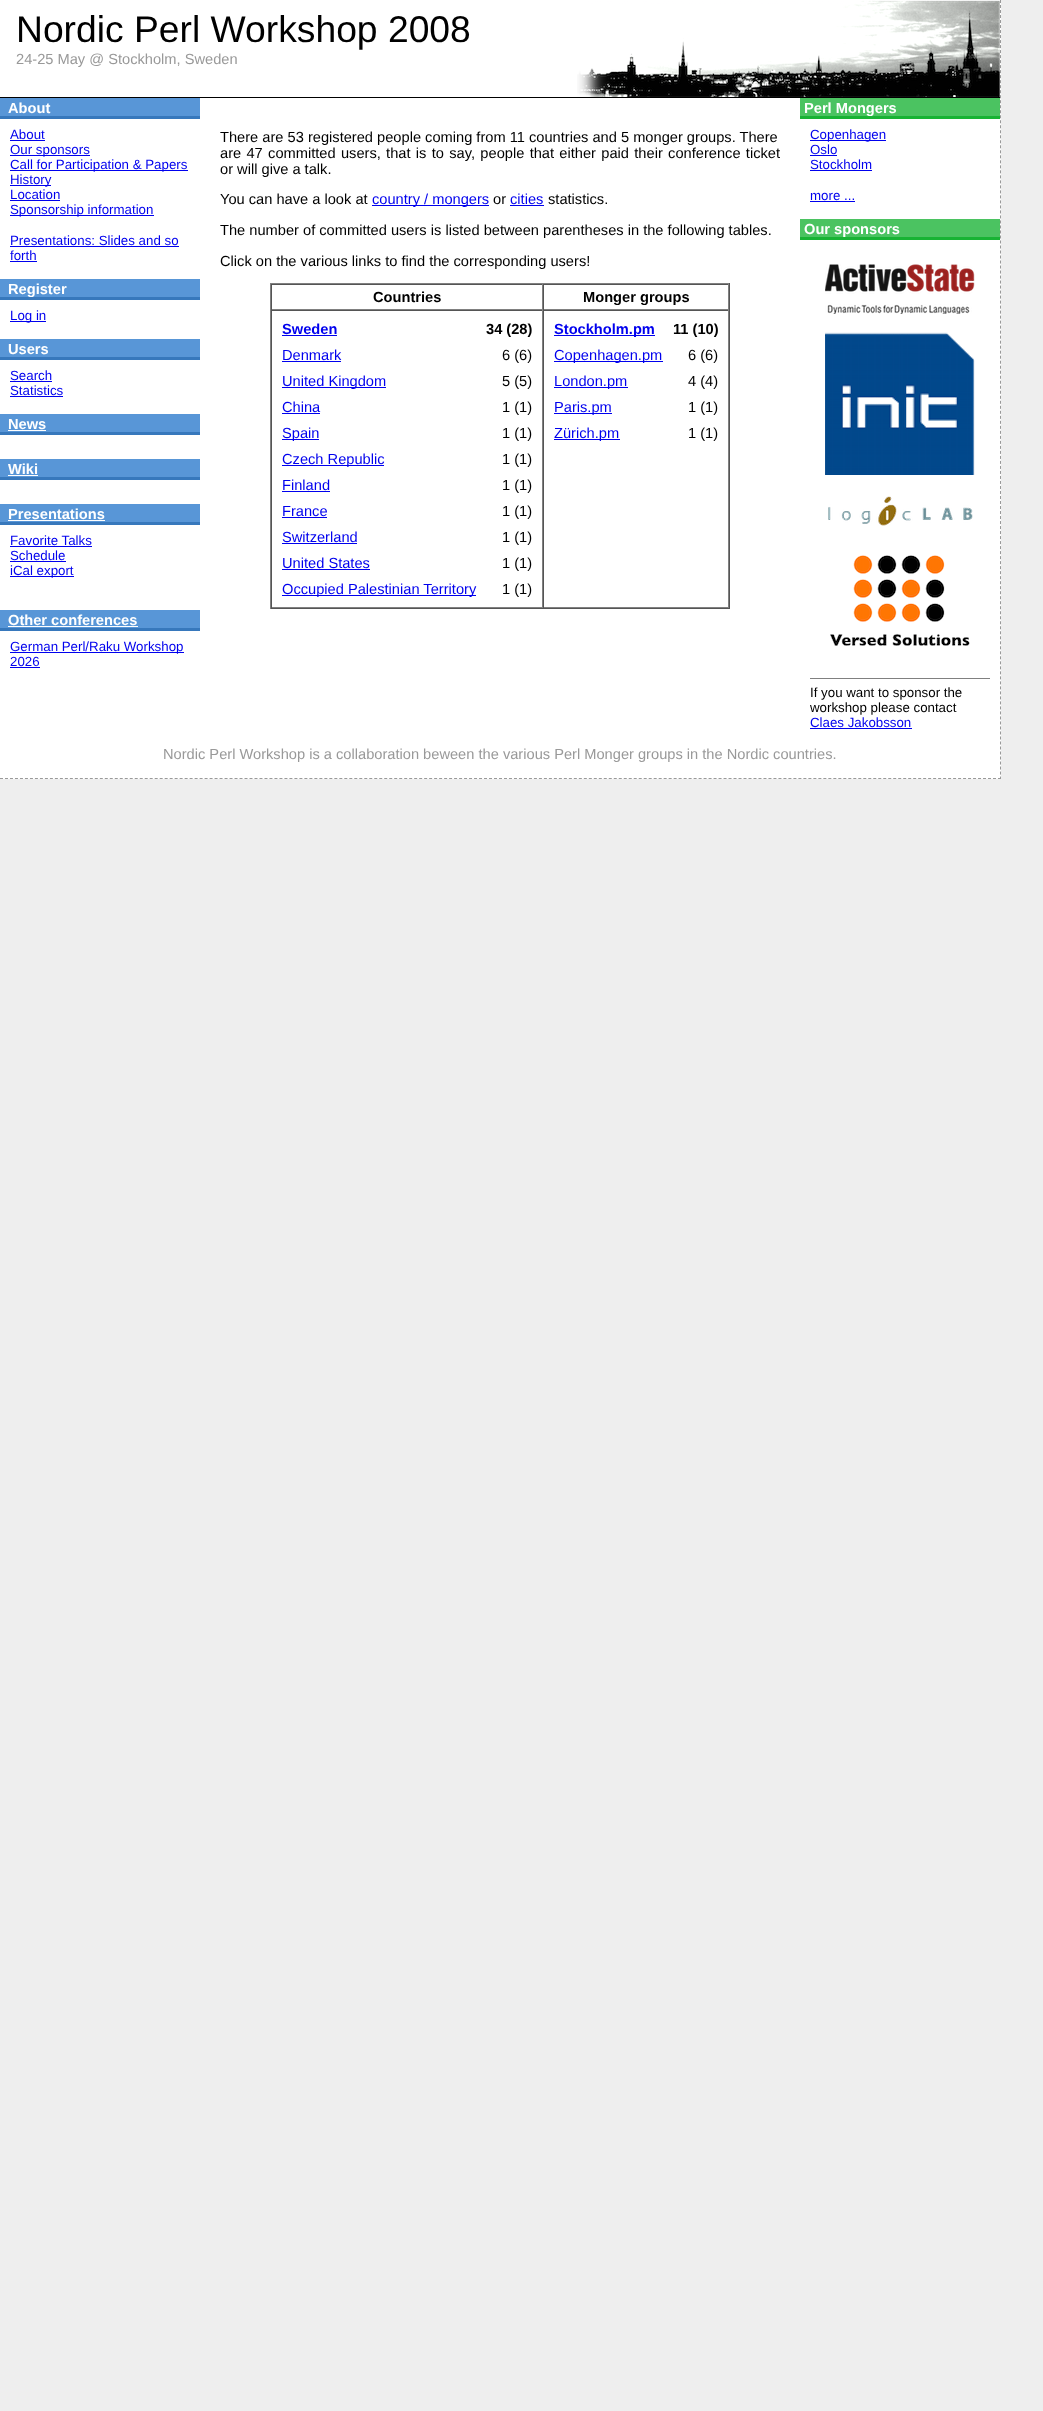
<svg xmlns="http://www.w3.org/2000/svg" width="1043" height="2411">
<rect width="100%" height="100%" fill="#eee"/>
<rect width="1001" height="779" fill="#fff"/>
<path d="M1000.5 0v779" fill="none" stroke="#999" stroke-dasharray="3 2.01"/>
<path d="M0 778.5h1001" fill="none" stroke="#999" stroke-dasharray="3 1.99"/>
<image x="577" y="0" width="423" height="97" href="media/1.png"/>
<rect y="97" width="1000" height="1" fill="#000"/>
<text x="16" y="42" style="font-family:Liberation Sans;font-size:37.25px;fill:#000">Nordic Perl Workshop 2008</text>
<text x="16" y="64" style="font-family:Liberation Sans;font-size:14.65px;fill:#999">24-25 May @ Stockholm, Sweden</text>
<rect y="98" width="200" height="18" fill="#5896d7"/>
<rect y="116" width="200" height="3" fill="#3778bc"/>
<text x="8" y="113" style="font-family:Liberation Sans;font-size:14.65px;font-weight:bold;fill:#fff">About</text>
<text x="10" y="139" style="font-family:Liberation Sans;font-size:13.3px;fill:#00e">About</text>
<rect x="10" y="140" width="35" height="1" fill="#00e"/>
<rect x="10" y="155" width="80" height="1" fill="#00e"/>
<text x="10" y="154" style="font-family:Liberation Sans;font-size:13.3px;fill:#00e">Our sponsors</text>
<rect x="10" y="170" width="178" height="1" fill="#00e"/>
<text x="10" y="169" style="font-family:Liberation Sans;font-size:13.3px;fill:#00e">Call for Participation &amp; Papers</text>
<rect x="10" y="185" width="41" height="1" fill="#00e"/>
<text x="10" y="184" style="font-family:Liberation Sans;font-size:13.3px;fill:#00e">History</text>
<text x="10" y="199" style="font-family:Liberation Sans;font-size:13.3px;fill:#00e">Location</text>
<rect x="10" y="200" width="50" height="1" fill="#00e"/>
<rect x="10" y="215" width="144" height="1" fill="#00e"/>
<text x="10" y="214" style="font-family:Liberation Sans;font-size:13.3px;fill:#00e">Sponsorship information</text>
<text x="10" y="245" style="font-family:Liberation Sans;font-size:13.3px;fill:#00e">Presentations: Slides and so</text>
<rect x="10" y="246" width="169" height="1" fill="#00e"/>
<text x="10" y="260" style="font-family:Liberation Sans;font-size:13.3px;fill:#00e">forth</text>
<rect x="10" y="261" width="27" height="1" fill="#00e"/>
<rect y="279" width="200" height="18" fill="#5896d7"/>
<rect y="297" width="200" height="3" fill="#3778bc"/>
<text x="8" y="294" style="font-family:Liberation Sans;font-size:14.65px;font-weight:bold;fill:#fff">Register</text>
<rect x="10" y="321" width="36" height="1" fill="#00e"/>
<text x="10" y="320" style="font-family:Liberation Sans;font-size:13.3px;fill:#00e">Log in</text>
<rect y="339" width="200" height="18" fill="#5896d7"/>
<rect y="357" width="200" height="3" fill="#3778bc"/>
<text x="8" y="354" style="font-family:Liberation Sans;font-size:14.65px;font-weight:bold;fill:#fff">Users</text>
<text x="10" y="380" style="font-family:Liberation Sans;font-size:13.3px;fill:#00e">Search</text>
<rect x="10" y="381" width="42" height="1" fill="#00e"/>
<text x="10" y="395" style="font-family:Liberation Sans;font-size:13.3px;fill:#00e">Statistics</text>
<rect x="10" y="396" width="53" height="1" fill="#00e"/>
<rect y="414" width="200" height="18" fill="#5896d7"/>
<rect y="432" width="200" height="3" fill="#3778bc"/>
<text x="8" y="429" style="font-family:Liberation Sans;font-size:14.65px;font-weight:bold;fill:#fff">News</text>
<rect x="8" y="430" width="38" height="1" fill="#fff"/>
<rect y="459" width="200" height="18" fill="#5896d7"/>
<rect y="477" width="200" height="3" fill="#3778bc"/>
<text x="8" y="474" style="font-family:Liberation Sans;font-size:14.65px;font-weight:bold;fill:#fff">Wiki</text>
<rect x="8" y="475" width="30" height="1" fill="#fff"/>
<rect y="504" width="200" height="18" fill="#5896d7"/>
<rect y="522" width="200" height="3" fill="#3778bc"/>
<text x="8" y="519" style="font-family:Liberation Sans;font-size:14.65px;font-weight:bold;fill:#fff">Presentations</text>
<rect x="8" y="520" width="97" height="1" fill="#fff"/>
<text x="10" y="545" style="font-family:Liberation Sans;font-size:13.3px;fill:#00e">Favorite Talks</text>
<rect x="10" y="546" width="82" height="1" fill="#00e"/>
<text x="10" y="560" style="font-family:Liberation Sans;font-size:13.3px;fill:#00e">Schedule</text>
<rect x="10" y="561" width="56" height="1" fill="#00e"/>
<rect x="10" y="576" width="64" height="1" fill="#00e"/>
<text x="10" y="575" style="font-family:Liberation Sans;font-size:13.3px;fill:#00e">iCal export</text>
<rect y="610" width="200" height="18" fill="#5896d7"/>
<rect y="628" width="200" height="3" fill="#3778bc"/>
<text x="8" y="625" style="font-family:Liberation Sans;font-size:14.65px;font-weight:bold;fill:#fff">Other conferences</text>
<rect x="8" y="626" width="130" height="1" fill="#fff"/>
<rect x="10" y="652" width="174" height="1" fill="#00e"/>
<text x="10" y="651" style="font-family:Liberation Sans;font-size:13.3px;fill:#00e">German Perl/Raku Workshop</text>
<text x="10" y="666" style="font-family:Liberation Sans;font-size:13.3px;fill:#00e">2026</text>
<rect x="10" y="667" width="30" height="1" fill="#00e"/>
<text x="220" y="142" style="font-family:Liberation Sans;font-size:14.65px;fill:#000">There are 53 registered people coming from 11 countries and 5 monger groups. There</text>
<text x="220" y="158" word-spacing="1.25" style="font-family:Liberation Sans;font-size:14.65px;fill:#000">are 47 committed users, that is to say, people that either paid their conference ticket</text>
<text x="220" y="174" style="font-family:Liberation Sans;font-size:14.65px;fill:#000">or will give a talk.</text>
<text x="220" y="204" style="font-family:Liberation Sans;font-size:14.65px;fill:#000">You can have a look at</text>
<rect x="372" y="205" width="117" height="1" fill="#00e"/>
<text x="372" y="204" style="font-family:Liberation Sans;font-size:14.65px;fill:#00e">country / mongers</text>
<text x="493" y="204" style="font-family:Liberation Sans;font-size:14.65px;fill:#000">or</text>
<text x="510" y="204" style="font-family:Liberation Sans;font-size:14.65px;fill:#00e">cities</text>
<rect x="510" y="205" width="34" height="1" fill="#00e"/>
<text x="548" y="204" style="font-family:Liberation Sans;font-size:14.65px;fill:#000">statistics.</text>
<text x="220" y="235" style="font-family:Liberation Sans;font-size:14.65px;fill:#000">The number of committed users is listed between parentheses in the following tables.</text>
<text x="220" y="266" style="font-family:Liberation Sans;font-size:14.65px;fill:#000">Click on the various links to find the corresponding users!</text>
<rect x="270" y="283" width="460" height="1" fill="#808080"/>
<rect x="729" y="283" width="1" height="326" fill="#555"/>
<rect x="270" y="608" width="460" height="1" fill="#555"/>
<rect x="270" y="283" width="1" height="326" fill="#808080"/>
<rect x="271" y="284" width="458" height="1" fill="#555"/>
<rect x="542" y="284" width="1" height="26" fill="#808080"/>
<rect x="271" y="309" width="272" height="1" fill="#808080"/>
<rect x="271" y="284" width="1" height="26" fill="#555"/>
<text x="373" y="302" style="font-family:Liberation Sans;font-size:14.65px;font-weight:bold;fill:#000">Countries</text>
<rect x="728" y="284" width="1" height="26" fill="#808080"/>
<rect x="543" y="309" width="186" height="1" fill="#808080"/>
<rect x="543" y="284" width="1" height="26" fill="#555"/>
<text x="583" y="302" style="font-family:Liberation Sans;font-size:14.65px;font-weight:bold;fill:#000">Monger groups</text>
<rect x="271" y="310" width="458" height="1" fill="#555"/>
<rect x="542" y="310" width="1" height="298" fill="#808080"/>
<rect x="271" y="607" width="272" height="1" fill="#808080"/>
<rect x="271" y="310" width="1" height="298" fill="#555"/>
<text x="282" y="334" style="font-family:Liberation Sans;font-size:14.65px;font-weight:bold;fill:#00e">Sweden</text>
<rect x="282" y="335" width="55" height="1" fill="#00e"/>
<text x="486" y="334" style="font-family:Liberation Sans;font-size:14.65px;font-weight:bold;fill:#000">34 (28)</text>
<text x="282" y="360" style="font-family:Liberation Sans;font-size:14.65px;fill:#00e">Denmark</text>
<rect x="282" y="361" width="59" height="1" fill="#00e"/>
<text x="502" y="360" style="font-family:Liberation Sans;font-size:14.65px;fill:#000">6 (6)</text>
<rect x="282" y="387" width="104" height="1" fill="#00e"/>
<text x="282" y="386" style="font-family:Liberation Sans;font-size:14.65px;fill:#00e">United Kingdom</text>
<text x="502" y="386" style="font-family:Liberation Sans;font-size:14.65px;fill:#000">5 (5)</text>
<text x="282" y="412" style="font-family:Liberation Sans;font-size:14.65px;fill:#00e">China</text>
<rect x="282" y="413" width="38" height="1" fill="#00e"/>
<text x="502" y="412" style="font-family:Liberation Sans;font-size:14.65px;fill:#000">1 (1)</text>
<rect x="282" y="439" width="37" height="1" fill="#00e"/>
<text x="282" y="438" style="font-family:Liberation Sans;font-size:14.65px;fill:#00e">Spain</text>
<text x="502" y="438" style="font-family:Liberation Sans;font-size:14.65px;fill:#000">1 (1)</text>
<rect x="282" y="465" width="102" height="1" fill="#00e"/>
<text x="282" y="464" style="font-family:Liberation Sans;font-size:14.65px;fill:#00e">Czech Republic</text>
<text x="502" y="464" style="font-family:Liberation Sans;font-size:14.65px;fill:#000">1 (1)</text>
<text x="282" y="490" style="font-family:Liberation Sans;font-size:14.65px;fill:#00e">Finland</text>
<rect x="282" y="491" width="48" height="1" fill="#00e"/>
<text x="502" y="490" style="font-family:Liberation Sans;font-size:14.65px;fill:#000">1 (1)</text>
<text x="282" y="516" style="font-family:Liberation Sans;font-size:14.65px;fill:#00e">France</text>
<rect x="282" y="517" width="45" height="1" fill="#00e"/>
<text x="502" y="516" style="font-family:Liberation Sans;font-size:14.65px;fill:#000">1 (1)</text>
<text x="282" y="542" style="font-family:Liberation Sans;font-size:14.65px;fill:#00e">Switzerland</text>
<rect x="282" y="543" width="75" height="1" fill="#00e"/>
<text x="502" y="542" style="font-family:Liberation Sans;font-size:14.65px;fill:#000">1 (1)</text>
<text x="282" y="568" style="font-family:Liberation Sans;font-size:14.65px;fill:#00e">United States</text>
<rect x="282" y="569" width="88" height="1" fill="#00e"/>
<text x="502" y="568" style="font-family:Liberation Sans;font-size:14.65px;fill:#000">1 (1)</text>
<rect x="282" y="595" width="194" height="1" fill="#00e"/>
<text x="282" y="594" style="font-family:Liberation Sans;font-size:14.65px;fill:#00e">Occupied Palestinian Territory</text>
<text x="502" y="594" style="font-family:Liberation Sans;font-size:14.65px;fill:#000">1 (1)</text>
<rect x="728" y="310" width="1" height="298" fill="#808080"/>
<rect x="543" y="607" width="186" height="1" fill="#808080"/>
<rect x="543" y="310" width="1" height="298" fill="#555"/>
<rect x="554" y="335" width="101" height="1" fill="#00e"/>
<text x="554" y="334" style="font-family:Liberation Sans;font-size:14.65px;font-weight:bold;fill:#00e">Stockholm.pm</text>
<text x="673" y="334" style="font-family:Liberation Sans;font-size:14.65px;font-weight:bold;fill:#000">11 (10)</text>
<rect x="554" y="361" width="109" height="1" fill="#00e"/>
<text x="554" y="360" style="font-family:Liberation Sans;font-size:14.65px;fill:#00e">Copenhagen.pm</text>
<text x="688" y="360" style="font-family:Liberation Sans;font-size:14.65px;fill:#000">6 (6)</text>
<rect x="554" y="387" width="74" height="1" fill="#00e"/>
<text x="554" y="386" style="font-family:Liberation Sans;font-size:14.65px;fill:#00e">London.pm</text>
<text x="688" y="386" style="font-family:Liberation Sans;font-size:14.65px;fill:#000">4 (4)</text>
<rect x="554" y="413" width="58" height="1" fill="#00e"/>
<text x="554" y="412" style="font-family:Liberation Sans;font-size:14.65px;fill:#00e">Paris.pm</text>
<text x="688" y="412" style="font-family:Liberation Sans;font-size:14.65px;fill:#000">1 (1)</text>
<rect x="554" y="439" width="66" height="1" fill="#00e"/>
<text x="554" y="438" style="font-family:Liberation Sans;font-size:14.65px;fill:#00e">Zürich.pm</text>
<text x="688" y="438" style="font-family:Liberation Sans;font-size:14.65px;fill:#000">1 (1)</text>
<rect x="800" y="98" width="200" height="18" fill="#4bc361"/>
<rect x="800" y="116" width="200" height="3" fill="#18b334"/>
<text x="804" y="113" style="font-family:Liberation Sans;font-size:14.65px;font-weight:bold;fill:#fff">Perl Mongers</text>
<rect x="810" y="140" width="76" height="1" fill="#00e"/>
<text x="810" y="139" style="font-family:Liberation Sans;font-size:13.3px;fill:#00e">Copenhagen</text>
<text x="810" y="154" style="font-family:Liberation Sans;font-size:13.3px;fill:#00e">Oslo</text>
<rect x="810" y="155" width="27" height="1" fill="#00e"/>
<text x="810" y="169" style="font-family:Liberation Sans;font-size:13.3px;fill:#00e">Stockholm</text>
<rect x="810" y="170" width="62" height="1" fill="#00e"/>
<text x="810" y="200" style="font-family:Liberation Sans;font-size:13.3px;fill:#00e">more ...</text>
<rect x="810" y="201" width="45" height="1" fill="#00e"/>
<rect x="800" y="219" width="200" height="18" fill="#4bc361"/>
<rect x="800" y="237" width="200" height="3" fill="#18b334"/>
<text x="804" y="234" style="font-family:Liberation Sans;font-size:14.65px;font-weight:bold;fill:#fff">Our sponsors</text>
<image x="825" y="264" width="150" height="50" href="media/2.png"/>
<image x="825" y="332" width="150" height="143" href="media/3.png"/>
<image x="828" y="496" width="145" height="30" href="media/4.png"/>
<image x="830" y="555" width="140" height="91" href="media/5.png"/>
<rect x="810" y="678" width="180" height="1" fill="#808080"/>
<text x="810" y="697" style="font-family:Liberation Sans;font-size:13.3px;fill:#000">If you want to sponsor the</text>
<text x="810" y="712" style="font-family:Liberation Sans;font-size:13.3px;fill:#000">workshop please contact</text>
<text x="810" y="727" style="font-family:Liberation Sans;font-size:13.3px;fill:#00e">Claes Jakobsson</text>
<rect x="810" y="728" width="102" height="1" fill="#00e"/>
<text x="163" y="759" style="font-family:Liberation Sans;font-size:14.65px;fill:#999">Nordic Perl Workshop is a collaboration beween the various Perl Monger groups in the Nordic countries.</text>
</svg>
